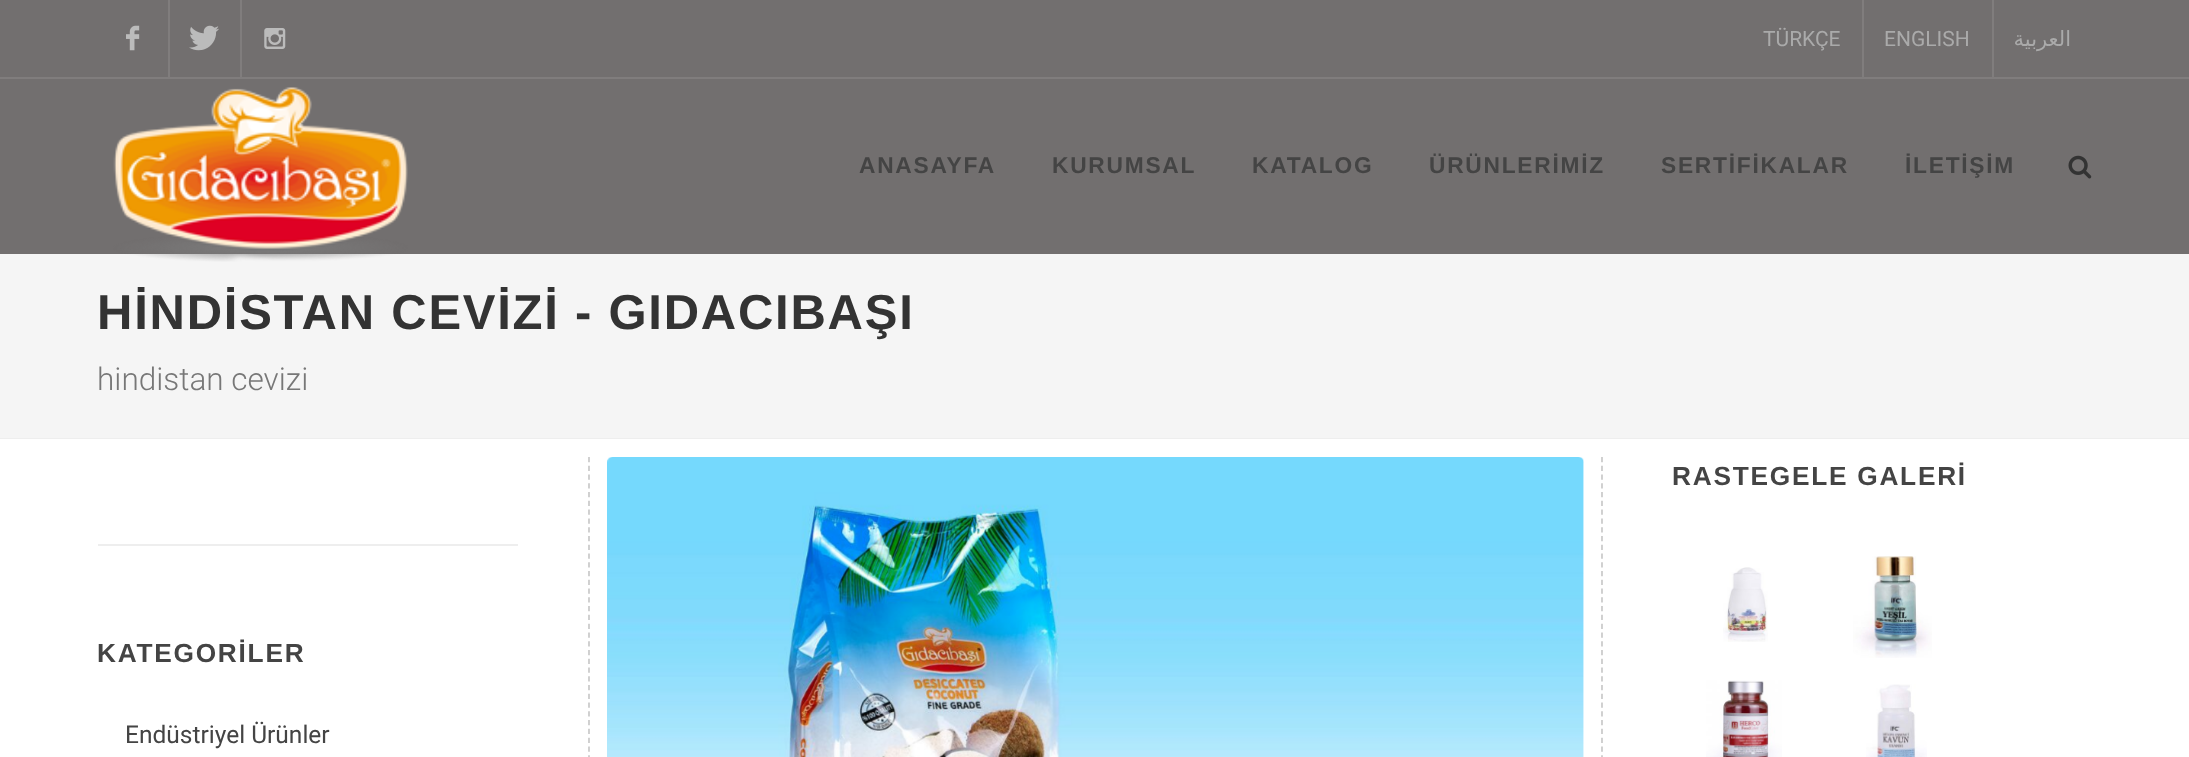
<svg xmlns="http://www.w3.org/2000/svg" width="2189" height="757">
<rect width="100%" height="100%" fill="#f5f5f5"/>
<rect width="2189" height="77" fill="#726f6f"/>
<rect y="77" width="2189" height="2" fill="#807d7d"/>
<image x="126" y="25" width="14" height="26" href="media/1.png"/>
<rect x="168" width="2" height="77" fill="#807d7d"/>
<image x="189" y="25" width="30" height="26" href="media/2.png"/>
<rect x="240" width="2" height="77" fill="#807d7d"/>
<image x="264" y="28" width="22" height="21" href="media/3.png"/>
<text x="1763" y="46" style="font-family:Roboto;font-size:21px;fill:#aaa">TÜRKÇE</text>
<rect x="1862" width="2" height="77" fill="#807d7d"/>
<text x="1884" y="46" style="font-family:Roboto;font-size:21px;fill:#aaa">ENGLISH</text>
<rect x="1992" width="2" height="77" fill="#807d7d"/>
<text x="2071" y="46" style="font-family:DejaVu Sans;font-size:21px;direction:rtl;fill:#aaa">العربية</text>
<rect y="79" width="2189" height="175" fill="#726f6f"/>
<image x="113" y="87" width="295" height="175" href="media/4.png"/>
<text x="859" y="173" style="font-family:Liberation Sans;font-size:22.75px;font-weight:bold;letter-spacing:1.75px;fill:#444">ANASAYFA</text>
<text x="1052" y="173" style="font-family:Liberation Sans;font-size:22.75px;font-weight:bold;letter-spacing:1.75px;fill:#444">KURUMSAL</text>
<text x="1252" y="173" style="font-family:Liberation Sans;font-size:22.75px;font-weight:bold;letter-spacing:1.75px;fill:#444">KATALOG</text>
<text x="1429" y="173" style="font-family:Liberation Sans;font-size:22.75px;font-weight:bold;letter-spacing:1.75px;fill:#444">ÜRÜNLERİMİZ</text>
<text x="1661" y="173" style="font-family:Liberation Sans;font-size:22.75px;font-weight:bold;letter-spacing:1.75px;fill:#444">SERTİFİKALAR</text>
<text x="1905" y="173" style="font-family:Liberation Sans;font-size:22.75px;font-weight:bold;letter-spacing:1.75px;fill:#444">İLETİŞİM</text>
<image x="2068" y="155" width="24" height="24" href="media/5.png"/>
<rect y="438" width="2189" height="1" fill="#eee"/>
<text x="97" y="329" style="font-family:Liberation Sans;font-size:49px;font-weight:bold;letter-spacing:1.75px;fill:#333">HİNDİSTAN CEVİZİ - GIDACIBAŞI</text>
<text x="97" y="390" style="font-family:Roboto;font-size:31.5px;font-weight:300;fill:#777">hindistan cevizi</text>
<rect y="439" width="2189" height="318" fill="#fff"/>
<path d="M1602 457v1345.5" fill="none" stroke="#ccc" stroke-width="1.8" stroke-dasharray="5.25 3.52"/>
<path d="M589 457v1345.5" fill="none" stroke="#ccc" stroke-width="1.8" stroke-dasharray="5.25 3.52"/>
<image x="607" y="457" width="977" height="300" href="media/6.png"/>
<text x="1672" y="485" style="font-family:Liberation Sans;font-size:26.25px;font-weight:bold;letter-spacing:1.75px;fill:#444">RASTEGELE GALERİ</text>
<image x="1723" y="567" width="45" height="75" href="media/7.png"/>
<image x="1853" y="556" width="79" height="102" href="media/8.png"/>
<image x="1706" y="680" width="76" height="77" href="media/9.png"/>
<image x="1866" y="684" width="61" height="73" href="media/10.png"/>
<rect x="98" y="544" width="420" height="2" fill="#eee"/>
<text x="97" y="662" style="font-family:Liberation Sans;font-size:26.25px;font-weight:bold;letter-spacing:1.75px;fill:#444">KATEGORİLER</text>
<text x="125" y="743" style="font-family:Roboto;font-size:24.5px;fill:#444">Endüstriyel Ürünler</text>
</svg>
